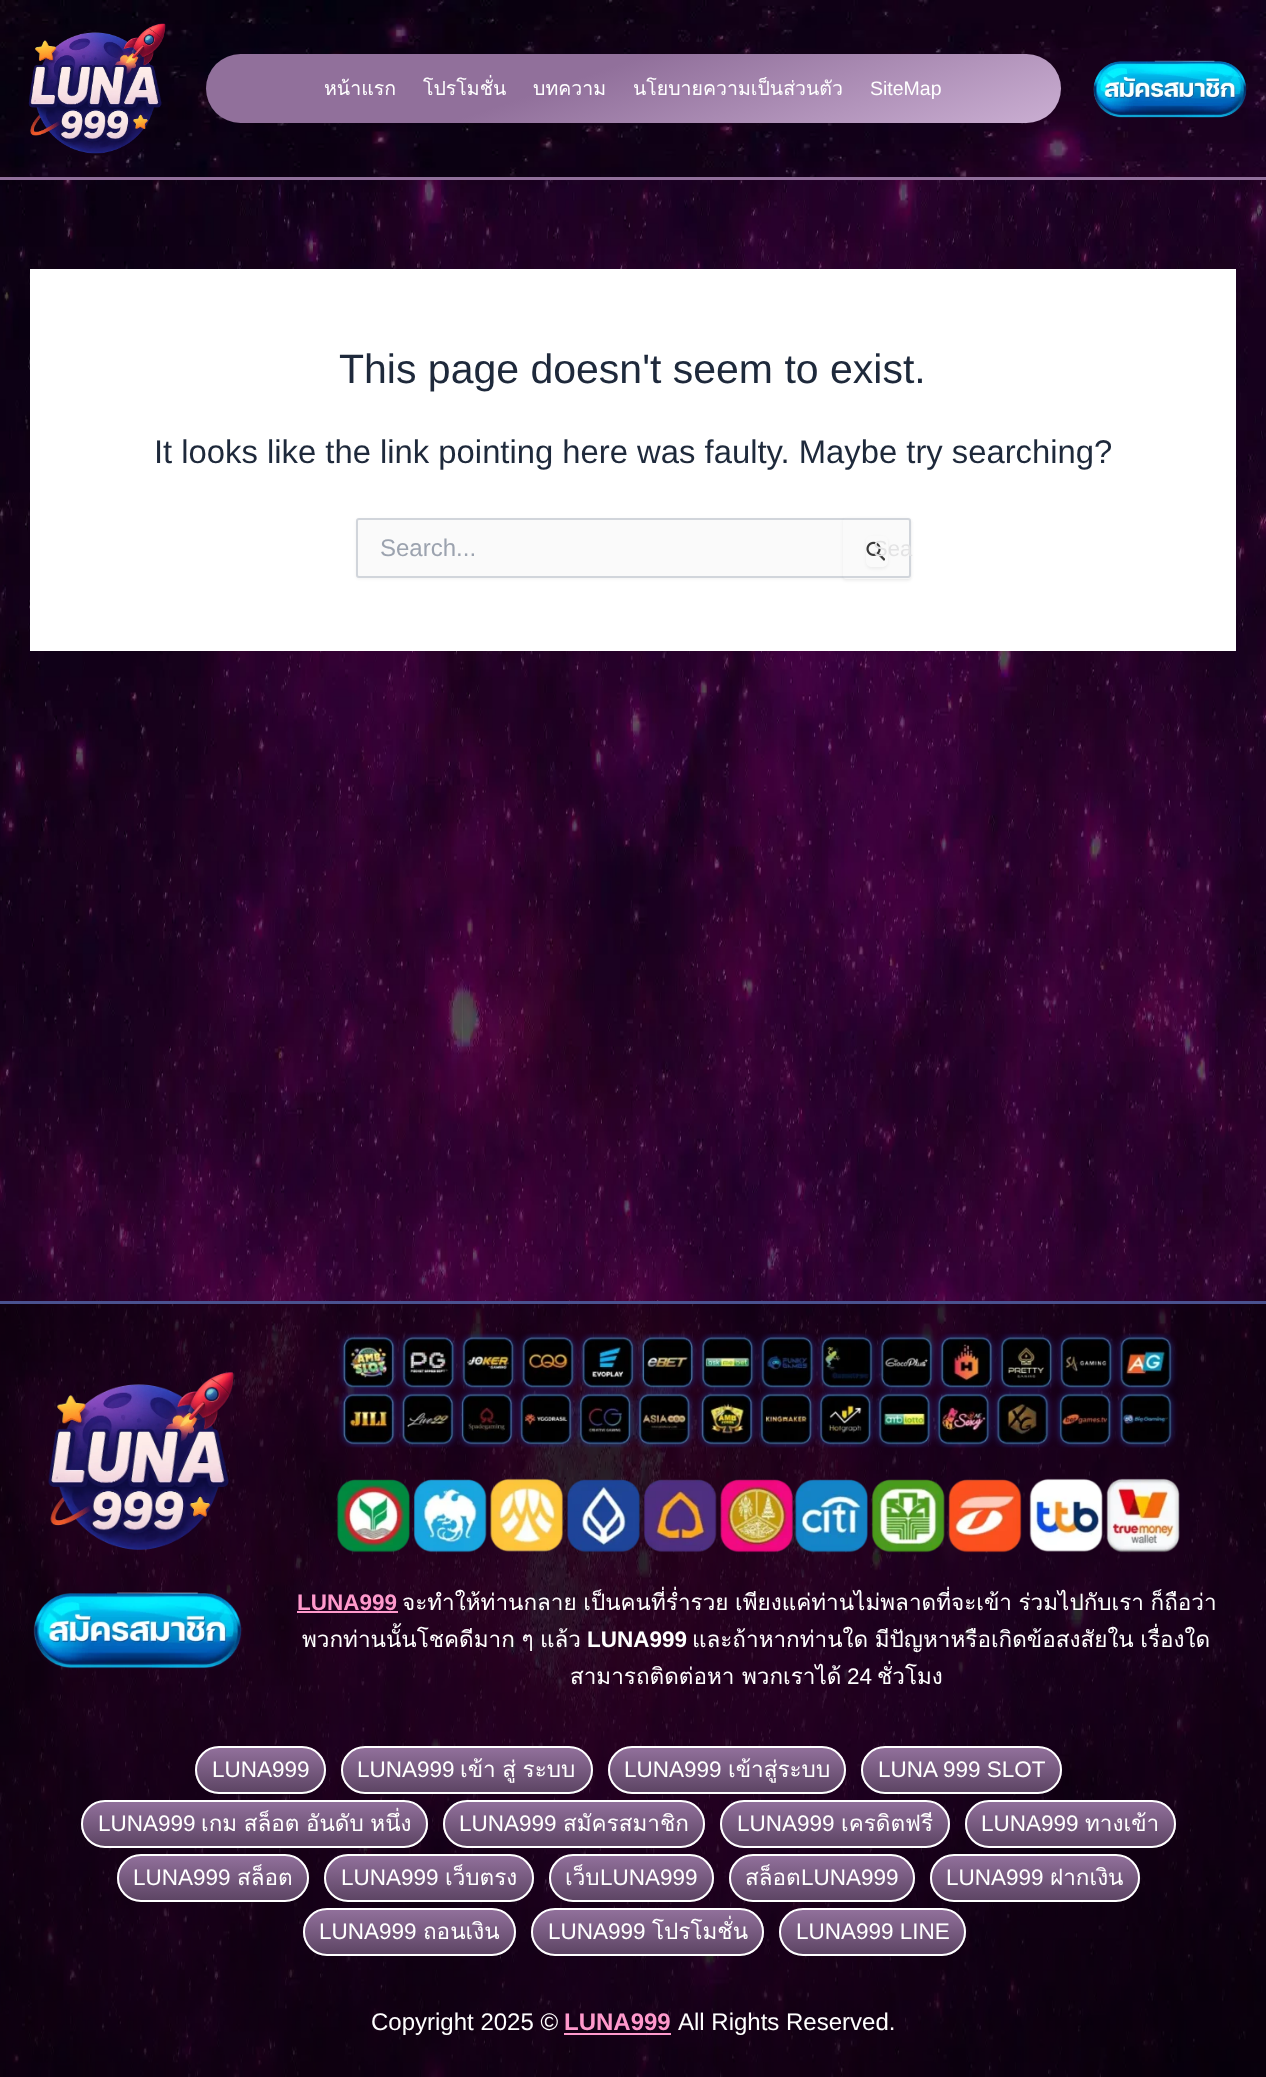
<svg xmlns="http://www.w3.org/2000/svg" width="1266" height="2077">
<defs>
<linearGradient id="g1" gradientUnits="userSpaceOnUse" x1="577" y1="-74" x2="689" y2="251"><stop offset="0.42" stop-color="#91709b"/><stop offset="1" stop-color="#caaed2"/></linearGradient>
<clipPath id="clip1"><path d="M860 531h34v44h-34zm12 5h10c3.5 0 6 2.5 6 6v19c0 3.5-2.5 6-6 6h-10c-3.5 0-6-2.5-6-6v-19c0-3.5 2.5-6 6-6z" clip-rule="evenodd"/></clipPath>
<clipPath id="clip2"><path d="M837 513h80v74h-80zm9 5h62c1.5 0 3 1.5 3 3v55c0 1.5-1.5 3-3 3h-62c-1.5 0-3-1.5-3-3v-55c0-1.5 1.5-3 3-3z" clip-rule="evenodd"/></clipPath>
<clipPath id="clip3"><rect x="195" y="1746" width="131" height="48" rx="24"/></clipPath>
<linearGradient id="g2" gradientUnits="userSpaceOnUse" x1="260" y1="1748" x2="260" y2="1793"><stop offset="0" stop-color="#91709b"/><stop offset="1" stop-color="#5c4463"/></linearGradient>
<clipPath id="clip4"><rect x="341" y="1746" width="252" height="48" rx="24"/></clipPath>
<linearGradient id="g3" gradientUnits="userSpaceOnUse" x1="467" y1="1748" x2="467" y2="1793"><stop offset="0" stop-color="#91709b"/><stop offset="1" stop-color="#5c4463"/></linearGradient>
<clipPath id="clip5"><rect x="608" y="1746" width="238" height="48" rx="24"/></clipPath>
<linearGradient id="g4" gradientUnits="userSpaceOnUse" x1="727" y1="1748" x2="727" y2="1793"><stop offset="0" stop-color="#91709b"/><stop offset="1" stop-color="#5c4463"/></linearGradient>
<clipPath id="clip6"><rect x="861" y="1746" width="201" height="48" rx="24"/></clipPath>
<linearGradient id="g5" gradientUnits="userSpaceOnUse" x1="962" y1="1748" x2="962" y2="1793"><stop offset="0" stop-color="#91709b"/><stop offset="1" stop-color="#5c4463"/></linearGradient>
<clipPath id="clip7"><rect x="81" y="1800" width="347" height="48" rx="24"/></clipPath>
<linearGradient id="g6" gradientUnits="userSpaceOnUse" x1="254" y1="1802" x2="254" y2="1847"><stop offset="0" stop-color="#91709b"/><stop offset="1" stop-color="#5c4463"/></linearGradient>
<clipPath id="clip8"><rect x="443" y="1800" width="262" height="48" rx="24"/></clipPath>
<linearGradient id="g7" gradientUnits="userSpaceOnUse" x1="574" y1="1802" x2="574" y2="1847"><stop offset="0" stop-color="#91709b"/><stop offset="1" stop-color="#5c4463"/></linearGradient>
<clipPath id="clip9"><rect x="720" y="1800" width="230" height="48" rx="24"/></clipPath>
<linearGradient id="g8" gradientUnits="userSpaceOnUse" x1="835" y1="1802" x2="835" y2="1847"><stop offset="0" stop-color="#91709b"/><stop offset="1" stop-color="#5c4463"/></linearGradient>
<clipPath id="clip10"><rect x="965" y="1800" width="211" height="48" rx="24"/></clipPath>
<linearGradient id="g9" gradientUnits="userSpaceOnUse" x1="1070" y1="1802" x2="1070" y2="1847"><stop offset="0" stop-color="#91709b"/><stop offset="1" stop-color="#5c4463"/></linearGradient>
<clipPath id="clip11"><rect x="117" y="1854" width="192" height="48" rx="24"/></clipPath>
<linearGradient id="g10" gradientUnits="userSpaceOnUse" x1="213" y1="1856" x2="213" y2="1901"><stop offset="0" stop-color="#91709b"/><stop offset="1" stop-color="#5c4463"/></linearGradient>
<clipPath id="clip12"><rect x="324" y="1854" width="210" height="48" rx="24"/></clipPath>
<linearGradient id="g11" gradientUnits="userSpaceOnUse" x1="429" y1="1856" x2="429" y2="1901"><stop offset="0" stop-color="#91709b"/><stop offset="1" stop-color="#5c4463"/></linearGradient>
<clipPath id="clip13"><rect x="549" y="1854" width="165" height="48" rx="24"/></clipPath>
<linearGradient id="g12" gradientUnits="userSpaceOnUse" x1="632" y1="1856" x2="632" y2="1901"><stop offset="0" stop-color="#91709b"/><stop offset="1" stop-color="#5c4463"/></linearGradient>
<clipPath id="clip14"><rect x="729" y="1854" width="186" height="48" rx="24"/></clipPath>
<linearGradient id="g13" gradientUnits="userSpaceOnUse" x1="822" y1="1856" x2="822" y2="1901"><stop offset="0" stop-color="#91709b"/><stop offset="1" stop-color="#5c4463"/></linearGradient>
<clipPath id="clip15"><rect x="930" y="1854" width="210" height="48" rx="24"/></clipPath>
<linearGradient id="g14" gradientUnits="userSpaceOnUse" x1="1035" y1="1856" x2="1035" y2="1901"><stop offset="0" stop-color="#91709b"/><stop offset="1" stop-color="#5c4463"/></linearGradient>
<clipPath id="clip16"><rect x="303" y="1908" width="213" height="48" rx="24"/></clipPath>
<linearGradient id="g15" gradientUnits="userSpaceOnUse" x1="410" y1="1910" x2="410" y2="1955"><stop offset="0" stop-color="#91709b"/><stop offset="1" stop-color="#5c4463"/></linearGradient>
<clipPath id="clip17"><rect x="531" y="1908" width="233" height="48" rx="24"/></clipPath>
<linearGradient id="g16" gradientUnits="userSpaceOnUse" x1="647" y1="1910" x2="647" y2="1955"><stop offset="0" stop-color="#91709b"/><stop offset="1" stop-color="#5c4463"/></linearGradient>
<clipPath id="clip18"><rect x="779" y="1908" width="187" height="48" rx="24"/></clipPath>
<linearGradient id="g17" gradientUnits="userSpaceOnUse" x1="872" y1="1910" x2="872" y2="1955"><stop offset="0" stop-color="#91709b"/><stop offset="1" stop-color="#5c4463"/></linearGradient>
</defs>
<rect width="100%" height="100%" fill="#fff"/>
<image x="0" y="0" width="1266" height="177" href="media/1.png"/>
<rect y="177" width="1266" height="3" fill="#91709b"/>
<image x="28" y="23" width="138" height="131" href="media/2.png"/>
<rect x="206" y="54" width="855" height="69" rx="34.5" fill="url(#g1)"/>
<text x="324" y="95" style="font-family:Loma;font-size:19.5px;fill:#fff">หน้าแรก</text>
<text x="423" y="95" style="font-family:Loma;font-size:19.5px;fill:#fff">โปรโมชั่น</text>
<text x="533" y="95" style="font-family:Loma;font-size:19.5px;fill:#fff">บทความ</text>
<text x="633" y="95" style="font-family:Loma;font-size:19.5px;fill:#fff">นโยบายความเป็นส่วนตัว</text>
<text x="870" y="95" style="font-family:Liberation Sans;font-size:19.5px;fill:#fff">SiteMap</text>
<image x="1093" y="60" width="154" height="58" href="media/3.png"/>
<image x="0" y="180" width="1266" height="1897" href="media/9.png"/>
<rect x="30" y="269" width="1206" height="382" fill="#fff"/>
<text x="339" y="383" style="font-family:Liberation Sans;font-size:41px;fill:#1e293b">This page doesn't seem to exist.</text>
<text x="154" y="463" style="font-family:Liberation Sans;font-size:32.8px;fill:#1e293b">It looks like the link pointing here was faulty. Maybe try searching?</text>
<rect x="356" y="519" width="555" height="60" rx="3" fill="#0000000d" filter="blur(1.5px)"/>
<rect x="357" y="519" width="553" height="58" rx="2" fill="#fafafa" stroke="#d1d5db" stroke-width="2"/>
<text x="380" y="556" style="font-family:Liberation Sans;font-size:24px;fill:#9ca3af">Search...</text>
<g clip-path="url(#clip1)">
<rect x="866" y="537" width="22" height="32" rx="6" fill="#0000000d" filter="blur(1.5px)"/>
</g>
<image x="866" y="541" width="19" height="20" href="media/4.png"/>
<g clip-path="url(#clip2)">
<rect x="843" y="519" width="68" height="62" rx="3" fill="#0000000d" filter="blur(1.5px)"/>
</g>
<text x="873" y="556" style="font-family:Liberation Sans;font-size:22px;fill:#e3e3e4">Sea</text>
<rect y="1301" width="1266" height="3" fill="#4a518f"/>
<rect y="1304" width="1266" height="773" fill="#00000080"/>
<image x="48" y="1372" width="186" height="178" href="media/5.png"/>
<image x="33" y="1592" width="209" height="77" href="media/6.png"/>
<image x="337" y="1333" width="841" height="115" href="media/7.png"/>
<image x="336" y="1478" width="844" height="75" href="media/8.png"/>
<text x="297" y="1610" style="font-family:Liberation Sans;font-size:22.5px;font-weight:bold;fill:#f9c">LUNA999</text>
<rect x="297" y="1611" width="101" height="2" fill="#f9c"/>
<text x="402" y="1610" word-spacing="-1" style="font-family:Loma;font-size:22.5px;fill:#fff">จะทำให้ท่านกลาย เป็นคนที่ร่ำรวย เพียงแค่ท่านไม่พลาดที่จะเข้า ร่วมไปกับเรา ก็ถือว่า</text>
<text x="302" y="1647" word-spacing="-1" style="font-family:Loma;font-size:22.5px;fill:#fff">พวกท่านนั้นโชคดีมาก ๆ แล้ว</text>
<text x="587" y="1647" style="font-family:Liberation Sans;font-size:22.5px;font-weight:bold;fill:#fff">LUNA999</text>
<text x="692" y="1647" word-spacing="-1" style="font-family:Loma;font-size:22.5px;fill:#fff">และถ้าหากท่านใด มีปัญหาหรือเกิดข้อสงสัยใน เรื่องใด</text>
<text x="570" y="1684" style="font-family:Loma;font-size:22.5px;fill:#fff">สามารถติดต่อหา พวกเราได้</text>
<text x="847" y="1684" style="font-family:Liberation Sans;font-size:22.5px;fill:#fff">24</text>
<text x="877" y="1684" style="font-family:Loma;font-size:22.5px;fill:#fff">ชั่วโมง</text>
<g clip-path="url(#clip3)">
<rect x="195" y="1748" width="131" height="45" fill="url(#g2)"/>
</g>
<rect x="196" y="1747" width="129" height="46" rx="23" fill="none" stroke="#fff" stroke-width="2"/>
<text x="212" y="1777" style="font-family:Liberation Sans;font-size:22.5px;fill:#fff">LUNA999</text>
<g clip-path="url(#clip4)">
<rect x="341" y="1748" width="252" height="45" fill="url(#g3)"/>
</g>
<rect x="342" y="1747" width="250" height="46" rx="23" fill="none" stroke="#fff" stroke-width="2"/>
<text x="357" y="1777" style="font-family:Liberation Sans;font-size:22.5px;fill:#fff">LUNA999</text>
<text x="460" y="1777" word-spacing="-1" style="font-family:Loma;font-size:22.5px;fill:#fff">เข้า สู่ ระบบ</text>
<g clip-path="url(#clip5)">
<rect x="608" y="1748" width="238" height="45" fill="url(#g4)"/>
</g>
<rect x="609" y="1747" width="236" height="46" rx="23" fill="none" stroke="#fff" stroke-width="2"/>
<text x="624" y="1777" style="font-family:Liberation Sans;font-size:22.5px;fill:#fff">LUNA999</text>
<text x="728" y="1777" style="font-family:Loma;font-size:22.5px;fill:#fff">เข้าสู่ระบบ</text>
<g clip-path="url(#clip6)">
<rect x="861" y="1748" width="201" height="45" fill="url(#g5)"/>
</g>
<rect x="862" y="1747" width="199" height="46" rx="23" fill="none" stroke="#fff" stroke-width="2"/>
<text x="878" y="1777" style="font-family:Liberation Sans;font-size:22.5px;fill:#fff">LUNA 999 SLOT</text>
<g clip-path="url(#clip7)">
<rect x="81" y="1802" width="347" height="45" fill="url(#g6)"/>
</g>
<rect x="82" y="1801" width="345" height="46" rx="23" fill="none" stroke="#fff" stroke-width="2"/>
<text x="98" y="1831" style="font-family:Liberation Sans;font-size:22.5px;fill:#fff">LUNA999</text>
<text x="201" y="1831" word-spacing="-1" style="font-family:Loma;font-size:22.5px;fill:#fff">เกม สล็อต อันดับ หนึ่ง</text>
<g clip-path="url(#clip8)">
<rect x="443" y="1802" width="262" height="45" fill="url(#g7)"/>
</g>
<rect x="444" y="1801" width="260" height="46" rx="23" fill="none" stroke="#fff" stroke-width="2"/>
<text x="459" y="1831" style="font-family:Liberation Sans;font-size:22.5px;fill:#fff">LUNA999</text>
<text x="563" y="1831" style="font-family:Loma;font-size:22.5px;fill:#fff">สมัครสมาชิก</text>
<g clip-path="url(#clip9)">
<rect x="720" y="1802" width="230" height="45" fill="url(#g8)"/>
</g>
<rect x="721" y="1801" width="228" height="46" rx="23" fill="none" stroke="#fff" stroke-width="2"/>
<text x="737" y="1831" style="font-family:Liberation Sans;font-size:22.5px;fill:#fff">LUNA999</text>
<text x="841" y="1831" style="font-family:Loma;font-size:22.5px;fill:#fff">เครดิตฟรี</text>
<g clip-path="url(#clip10)">
<rect x="965" y="1802" width="211" height="45" fill="url(#g9)"/>
</g>
<rect x="966" y="1801" width="209" height="46" rx="23" fill="none" stroke="#fff" stroke-width="2"/>
<text x="981" y="1831" style="font-family:Liberation Sans;font-size:22.5px;fill:#fff">LUNA999</text>
<text x="1085" y="1831" style="font-family:Loma;font-size:22.5px;fill:#fff">ทางเข้า</text>
<g clip-path="url(#clip11)">
<rect x="117" y="1856" width="192" height="45" fill="url(#g10)"/>
</g>
<rect x="118" y="1855" width="190" height="46" rx="23" fill="none" stroke="#fff" stroke-width="2"/>
<text x="133" y="1885" style="font-family:Liberation Sans;font-size:22.5px;fill:#fff">LUNA999</text>
<text x="237" y="1885" style="font-family:Loma;font-size:22.5px;fill:#fff">สล็อต</text>
<g clip-path="url(#clip12)">
<rect x="324" y="1856" width="210" height="45" fill="url(#g11)"/>
</g>
<rect x="325" y="1855" width="208" height="46" rx="23" fill="none" stroke="#fff" stroke-width="2"/>
<text x="341" y="1885" style="font-family:Liberation Sans;font-size:22.5px;fill:#fff">LUNA999</text>
<text x="445" y="1885" style="font-family:Loma;font-size:22.5px;fill:#fff">เว็บตรง</text>
<g clip-path="url(#clip13)">
<rect x="549" y="1856" width="165" height="45" fill="url(#g12)"/>
</g>
<rect x="550" y="1855" width="163" height="46" rx="23" fill="none" stroke="#fff" stroke-width="2"/>
<text x="565" y="1885" style="font-family:Loma;font-size:22.5px;fill:#fff">เว็บ</text>
<text x="600" y="1885" style="font-family:Liberation Sans;font-size:22.5px;fill:#fff">LUNA999</text>
<g clip-path="url(#clip14)">
<rect x="729" y="1856" width="186" height="45" fill="url(#g13)"/>
</g>
<rect x="730" y="1855" width="184" height="46" rx="23" fill="none" stroke="#fff" stroke-width="2"/>
<text x="745" y="1885" style="font-family:Loma;font-size:22.5px;fill:#fff">สล็อต</text>
<text x="801" y="1885" style="font-family:Liberation Sans;font-size:22.5px;fill:#fff">LUNA999</text>
<g clip-path="url(#clip15)">
<rect x="930" y="1856" width="210" height="45" fill="url(#g14)"/>
</g>
<rect x="931" y="1855" width="208" height="46" rx="23" fill="none" stroke="#fff" stroke-width="2"/>
<text x="946" y="1885" style="font-family:Liberation Sans;font-size:22.5px;fill:#fff">LUNA999</text>
<text x="1050" y="1885" style="font-family:Loma;font-size:22.5px;fill:#fff">ฝากเงิน</text>
<g clip-path="url(#clip16)">
<rect x="303" y="1910" width="213" height="45" fill="url(#g15)"/>
</g>
<rect x="304" y="1909" width="211" height="46" rx="23" fill="none" stroke="#fff" stroke-width="2"/>
<text x="319" y="1939" style="font-family:Liberation Sans;font-size:22.5px;fill:#fff">LUNA999</text>
<text x="423" y="1939" style="font-family:Loma;font-size:22.5px;fill:#fff">ถอนเงิน</text>
<g clip-path="url(#clip17)">
<rect x="531" y="1910" width="233" height="45" fill="url(#g16)"/>
</g>
<rect x="532" y="1909" width="231" height="46" rx="23" fill="none" stroke="#fff" stroke-width="2"/>
<text x="548" y="1939" style="font-family:Liberation Sans;font-size:22.5px;fill:#fff">LUNA999</text>
<text x="652" y="1939" style="font-family:Loma;font-size:22.5px;fill:#fff">โปรโมชั่น</text>
<g clip-path="url(#clip18)">
<rect x="779" y="1910" width="187" height="45" fill="url(#g17)"/>
</g>
<rect x="780" y="1909" width="185" height="46" rx="23" fill="none" stroke="#fff" stroke-width="2"/>
<text x="796" y="1939" style="font-family:Liberation Sans;font-size:22.5px;fill:#fff">LUNA999 LINE</text>
<text x="371" y="2030" style="font-family:Liberation Sans;font-size:24px;fill:#fff">Copyright 2025 ©</text>
<text x="564" y="2030" style="font-family:Liberation Sans;font-size:24px;font-weight:bold;fill:#f9c">LUNA999</text>
<rect x="564" y="2033" width="107" height="2" fill="#f9c"/>
<text x="678" y="2030" style="font-family:Liberation Sans;font-size:24px;fill:#fff">All Rights Reserved.</text>
</svg>
